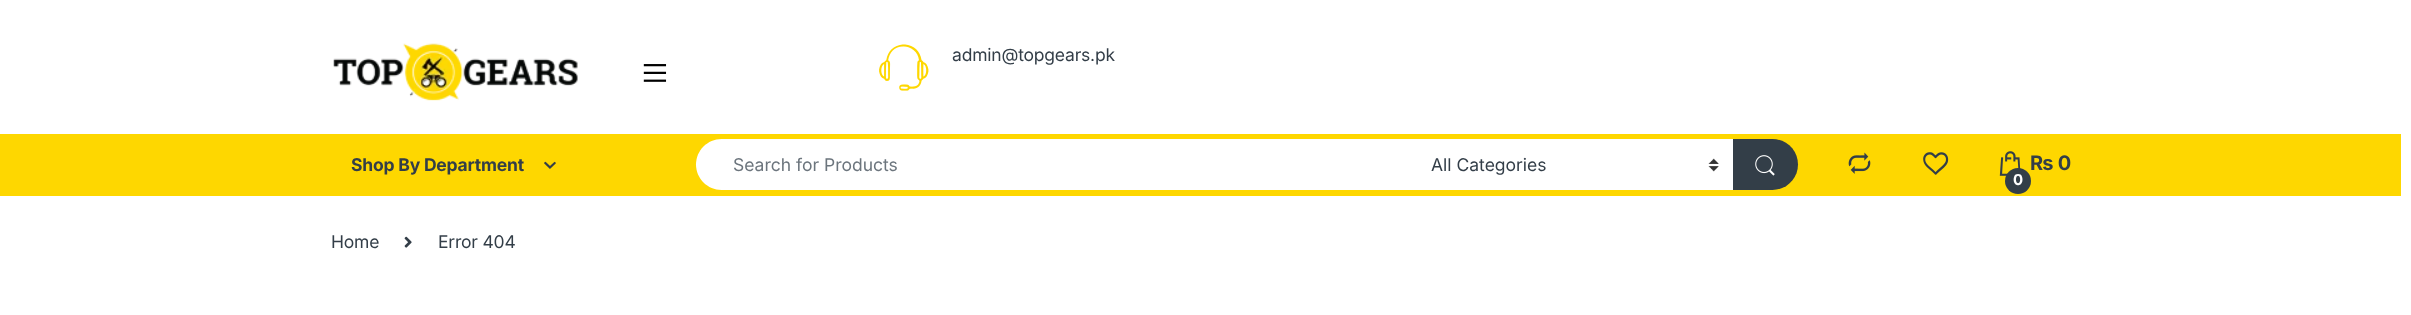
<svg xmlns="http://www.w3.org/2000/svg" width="2411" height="315">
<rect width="100%" height="100%" fill="#fff"/>
<image x="333" y="43" width="245" height="58" href="media/1.png"/>
<image x="643" y="64" width="24" height="18" href="media/2.png"/>
<image x="879" y="44" width="50" height="47" href="media/3.png"/>
<text x="952" y="61" style="font-family:Inter;font-size:17.5px;letter-spacing:-0.2px;fill:#333e48">admin@topgears.pk</text>
<rect y="134" width="2401" height="62" fill="#fed700"/>
<text x="351" y="171" style="font-family:Inter;font-size:17.5px;font-weight:bold;letter-spacing:-0.2px;fill:#333e48">Shop By Department</text>
<image x="544" y="161" width="12" height="8" href="media/4.png"/>
<path d="M721.5 139h696.5v51h-696.5c-14 0-25.5-11.5-25.5-25.5c0-14 11.5-25.5 25.5-25.5z" fill="#fff"/>
<text x="733" y="171" style="font-family:Inter;font-size:17.5px;fill:#6c757d">Search for Products</text>
<rect x="1418" y="139" width="315" height="51" fill="#fff"/>
<image x="1708" y="158" width="11" height="14" href="media/5.png"/>
<text x="1431" y="171" style="font-family:Inter;font-size:17.5px;fill:#333e48">All Categories</text>
<path d="M1733 139h39.5c14 0 25.5 11.5 25.5 25.5c0 14-11.5 25.5-25.5 25.5h-39.5z" fill="#333e48"/>
<image x="1755" y="155" width="20" height="21" href="media/6.png"/>
<image x="1848" y="152" width="23" height="22" href="media/7.png"/>
<image x="1923" y="152" width="26" height="23" href="media/8.png"/>
<image x="1999" y="151" width="22" height="25" href="media/9.png"/>
<text x="2030" y="170" style="font-family:Inter;font-size:20px;font-weight:bold;letter-spacing:-0.2px;fill:#333e48">₨ 0</text>
<circle cx="2018" cy="181" r="13" fill="#333e48"/>
<text x="2013" y="185" style="font-family:Inter;font-size:15px;font-weight:bold;letter-spacing:-0.2px;fill:#fff">0</text>
<text x="331" y="248" style="font-family:Inter;font-size:17.5px;letter-spacing:-0.2px;fill:#333e48">Home</text>
<image x="404" y="236" width="8" height="12" href="media/10.png"/>
<text x="438" y="248" style="font-family:Inter;font-size:17.5px;letter-spacing:-0.2px;fill:#333e48">Error 404</text>
</svg>
